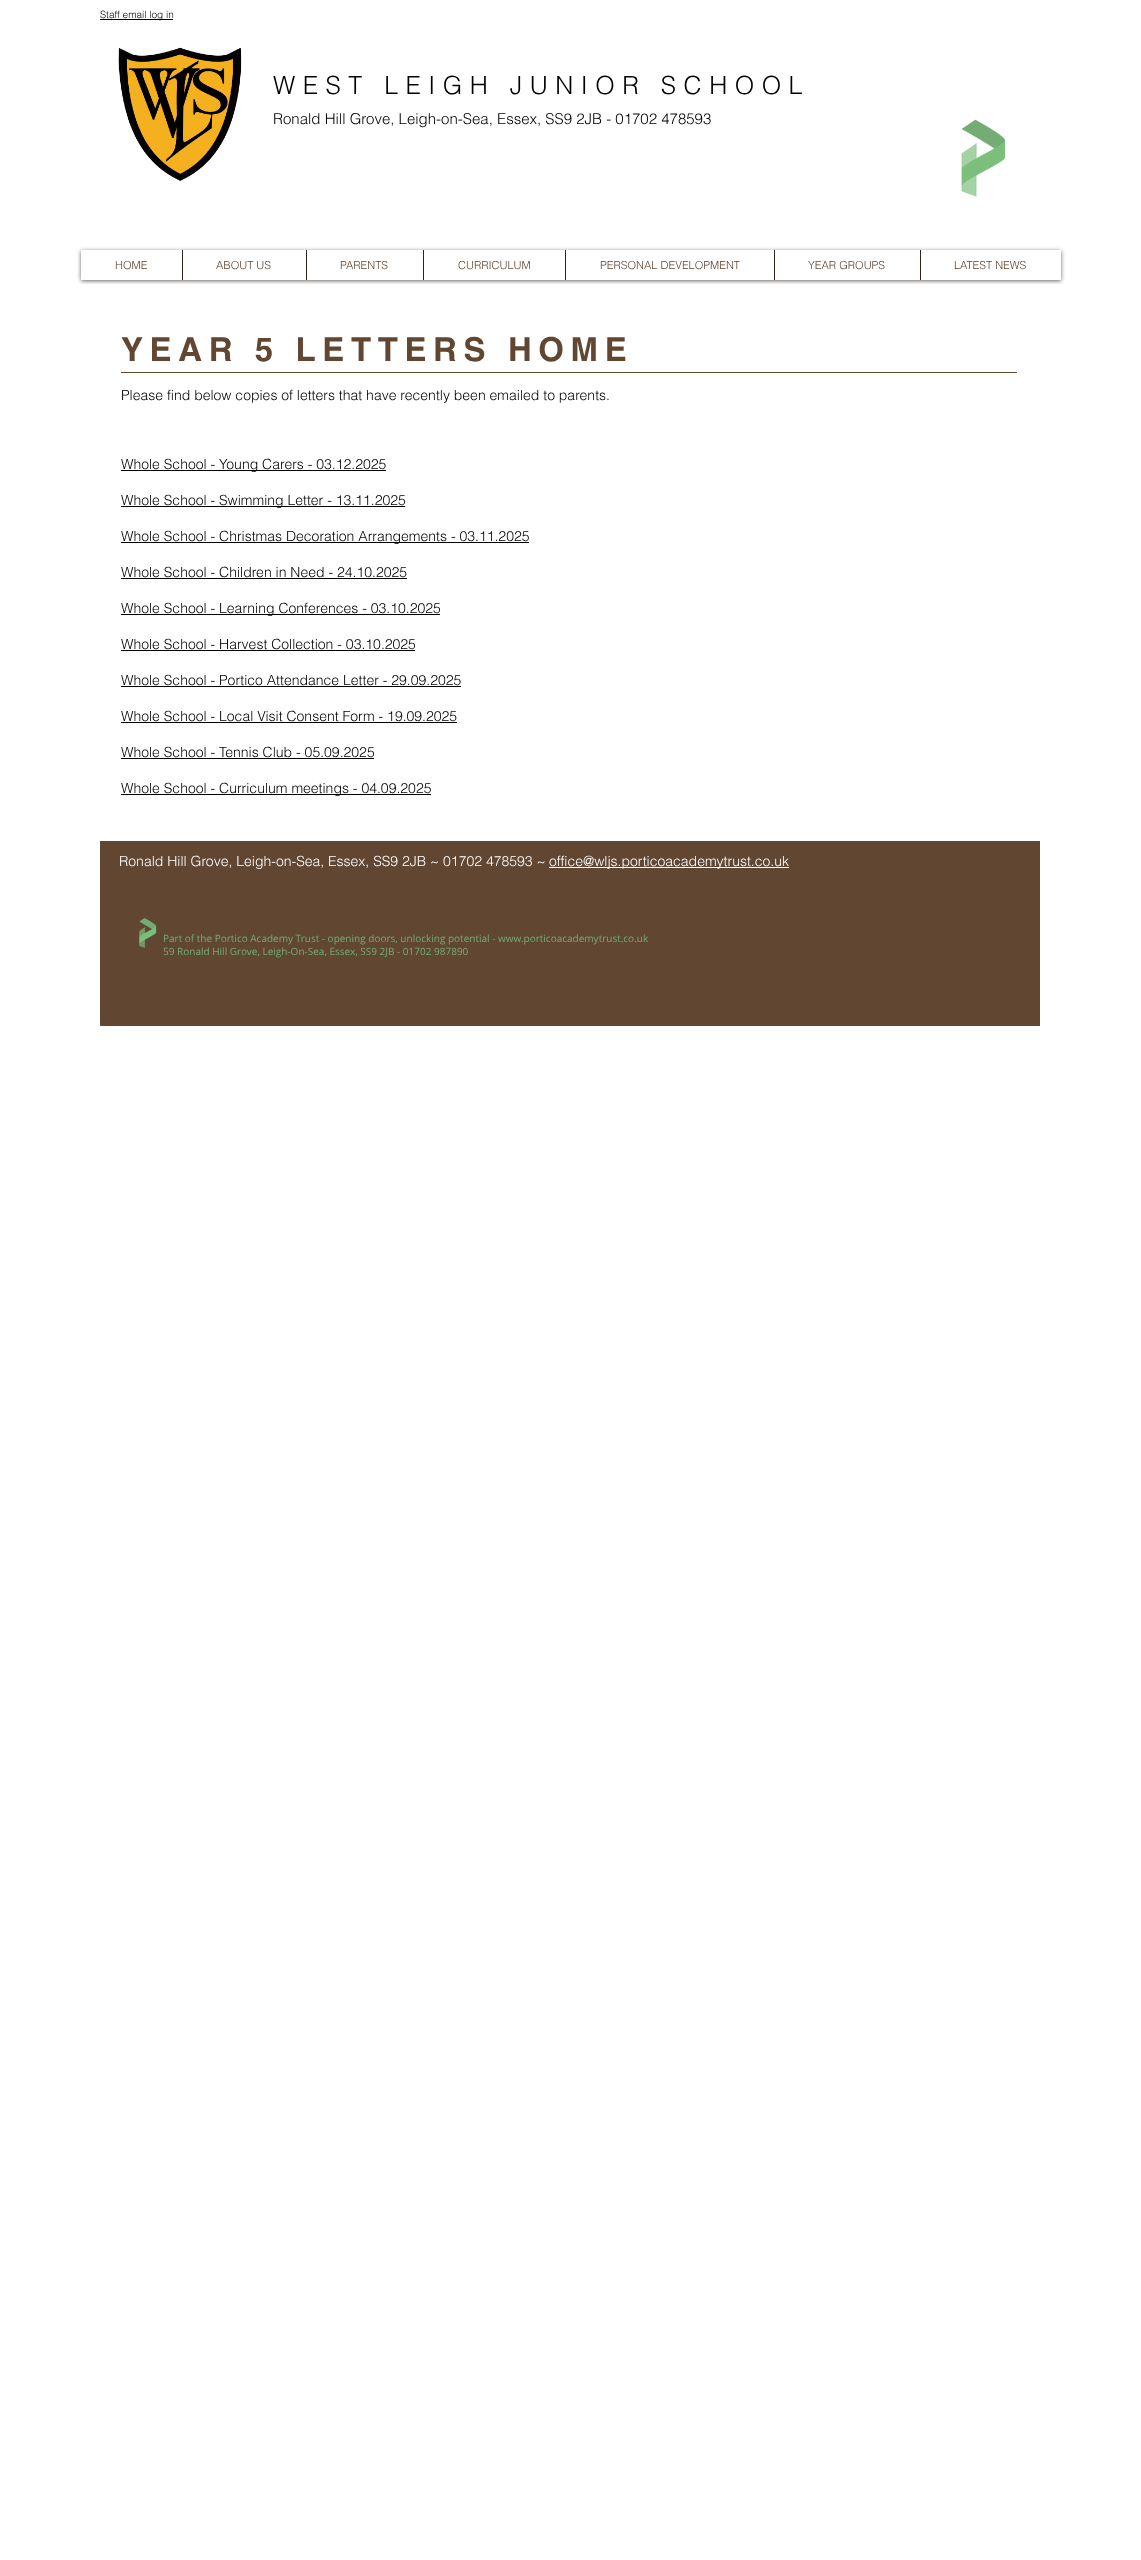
<svg xmlns="http://www.w3.org/2000/svg" width="1141" height="2560">
<defs>
<clipPath id="clip1"><path d="M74 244h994v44h-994zm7 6h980v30h-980z" clip-rule="evenodd"/></clipPath>
</defs>
<rect width="100%" height="100%" fill="#fff"/>
<rect x="100" y="19" width="73" height="1" fill="#000"/>
<text x="100" y="18" style="font-family:helvetica;font-size:10px;font-weight:300;fill:#000">Staff email log in</text>
<text x="273" y="94" style="font-family:helvetica;font-size:25px;font-weight:300;letter-spacing:7.5px;fill:#000">WEST LEIGH JUNIOR SCHOOL</text>
<image x="118" y="47" width="124" height="134" href="media/1.png"/>
<text x="273" y="124" style="font-family:helvetica;font-size:15px;font-weight:300;fill:#000">Ronald Hill Grove, Leigh-on-Sea, Essex, SS9 2JB - 01702 478593</text>
<image x="961" y="119" width="45" height="78" href="media/2.png"/>
<g clip-path="url(#clip1)">
<rect x="81" y="251" width="980" height="30" fill="#00000099" filter="blur(2px)"/>
</g>
<text x="115" y="269" style="font-family:helvetica;font-size:11px;font-weight:300;fill:#614632">HOME</text>
<rect x="182" y="250" width="1" height="30" fill="#312319"/>
<text x="216" y="269" style="font-family:helvetica;font-size:11px;font-weight:300;fill:#614632">ABOUT US</text>
<rect x="306" y="250" width="1" height="30" fill="#312319"/>
<text x="340" y="269" style="font-family:helvetica;font-size:11px;font-weight:300;fill:#614632">PARENTS</text>
<rect x="423" y="250" width="1" height="30" fill="#312319"/>
<text x="458" y="269" style="font-family:helvetica;font-size:11px;font-weight:300;fill:#614632">CURRICULUM</text>
<rect x="565" y="250" width="1" height="30" fill="#312319"/>
<text x="600" y="269" style="font-family:helvetica;font-size:11px;font-weight:300;fill:#614632">PERSONAL DEVELOPMENT</text>
<rect x="774" y="250" width="1" height="30" fill="#312319"/>
<text x="808" y="269" style="font-family:helvetica;font-size:11px;font-weight:300;fill:#614632">YEAR GROUPS</text>
<rect x="920" y="250" width="1" height="30" fill="#312319"/>
<text x="954" y="269" style="font-family:helvetica;font-size:11px;font-weight:300;fill:#614632">LATEST NEWS</text>
<rect x="81" y="284" width="980" height="1" fill="#fff"/>
<text x="121" y="361" style="font-family:helvetica;font-size:33px;font-weight:bold;letter-spacing:6.6px;fill:#614632">YEAR 5 LETTERS HOME</text>
<rect x="121" y="372" width="896" height="1" fill="#614632"/>
<text x="121" y="400" style="font-family:helvetica;font-size:14px;font-weight:300;fill:#000">Please find below copies of letters that have recently been emailed to parents.</text>
<rect x="121" y="470" width="265" height="1" fill="#000"/>
<text x="121" y="469" style="font-family:helvetica;font-size:14px;font-weight:300;fill:#000">Whole School - Young Carers - 03.12.2025</text>
<rect x="121" y="506" width="284" height="1" fill="#000"/>
<text x="121" y="505" style="font-family:helvetica;font-size:14px;font-weight:300;fill:#000">Whole School - Swimming Letter - 13.11.2025</text>
<rect x="121" y="542" width="408" height="1" fill="#000"/>
<text x="121" y="541" style="font-family:helvetica;font-size:14px;font-weight:300;fill:#000">Whole School - Christmas Decoration Arrangements - 03.11.2025</text>
<text x="121" y="577" style="font-family:helvetica;font-size:14px;font-weight:300;fill:#000">Whole School - Children in Need - 24.10.2025</text>
<rect x="121" y="578" width="286" height="1" fill="#000"/>
<rect x="121" y="614" width="319" height="1" fill="#000"/>
<text x="121" y="613" style="font-family:helvetica;font-size:14px;font-weight:300;fill:#000">Whole School - Learning Conferences - 03.10.2025</text>
<text x="121" y="649" style="font-family:helvetica;font-size:14px;font-weight:300;fill:#000">Whole School - Harvest Collection - 03.10.2025</text>
<rect x="121" y="650" width="294" height="1" fill="#000"/>
<text x="121" y="685" style="font-family:helvetica;font-size:14px;font-weight:300;fill:#000">Whole School - Portico Attendance Letter - 29.09.2025</text>
<rect x="121" y="686" width="340" height="1" fill="#000"/>
<text x="121" y="721" style="font-family:helvetica;font-size:14px;font-weight:300;fill:#000">Whole School - Local Visit Consent Form - 19.09.2025</text>
<rect x="121" y="722" width="336" height="1" fill="#000"/>
<text x="121" y="757" style="font-family:helvetica;font-size:14px;font-weight:300;fill:#000">Whole School - Tennis Club - 05.09.2025</text>
<rect x="121" y="758" width="253" height="1" fill="#000"/>
<rect x="121" y="794" width="310" height="1" fill="#000"/>
<text x="121" y="793" style="font-family:helvetica;font-size:14px;font-weight:300;fill:#000">Whole School - Curriculum meetings - 04.09.2025</text>
<rect x="100" y="841" width="940" height="185" fill="#614632"/>
<text x="119" y="866" style="font-family:helvetica;font-size:14px;font-weight:300;fill:#fff">Ronald Hill Grove, Leigh-on-Sea, Essex, SS9 2JB ~ 01702 478593 ~</text>
<rect x="549" y="867" width="240" height="1" fill="#fff"/>
<text x="549" y="866" style="font-family:helvetica;font-size:14px;font-weight:300;fill:#fff">office@wljs.porticoacademytrust.co.uk</text>
<image x="139" y="918" width="18" height="30" href="media/3.png"/>
<text x="163" y="942" style="font-family:Open Sans;font-size:10px;fill:#73ad75">Part of the Portico Academy Trust - opening doors, unlocking potential - www.porticoacademytrust.co.uk</text>
<text x="163" y="955" style="font-family:Open Sans;font-size:10px;fill:#73ad75">59 Ronald Hill Grove, Leigh-On-Sea, Essex, SS9 2JB - 01702 987890</text>
</svg>
